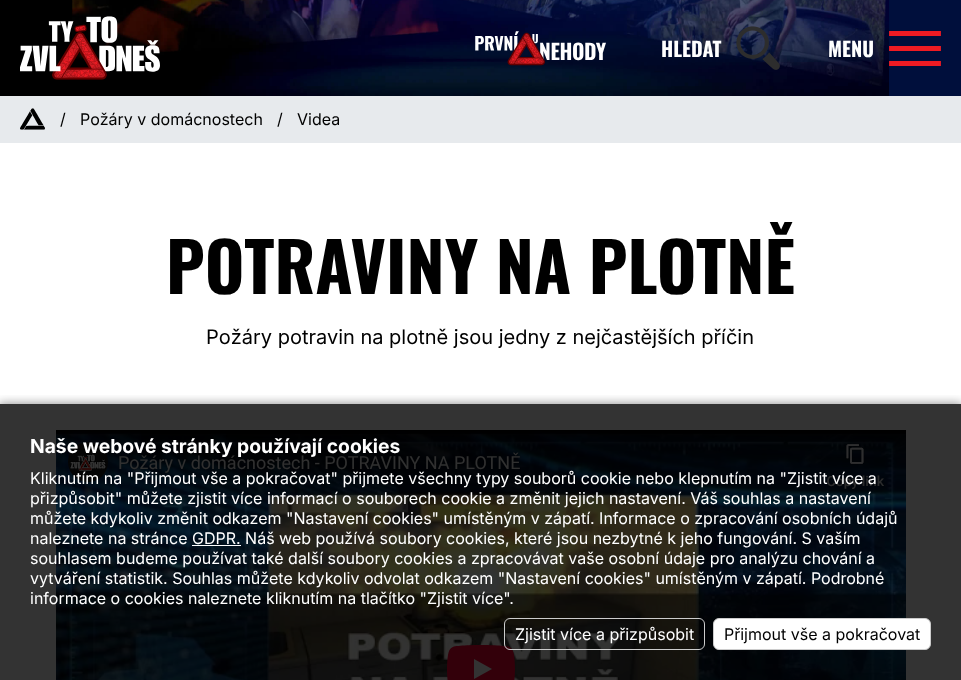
<svg xmlns="http://www.w3.org/2000/svg" width="961" height="680">
<defs>
<linearGradient id="g1" gradientUnits="userSpaceOnUse" x1="0" y1="48" x2="961" y2="48"><stop offset="0" stop-color="#000"/><stop offset="0.5" stop-color="#000"/><stop offset="0.52" stop-color="#000f3c"/><stop offset="1" stop-color="#000f3c"/></linearGradient>
<clipPath id="clip1"><rect x="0" y="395" width="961" height="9"/></clipPath>
</defs>
<rect width="100%" height="100%" fill="#fff"/>
<rect y="404" width="961" height="276" fill="#333"/>
<rect width="961" height="96" fill="url(#g1)"/>
<image x="72" y="0" width="817" height="96" href="media/1.png"/>
<image x="20" y="16" width="140" height="64" href="media/2.png"/>
<image x="475" y="31" width="131" height="35" href="media/3.png"/>
<text x="661" y="57" style="font-family:Oswald;font-size:20px;font-weight:bold;fill:#fff">HLEDAT</text>
<image x="736" y="26" width="44" height="44" href="media/4.png"/>
<text x="828" y="57" style="font-family:Oswald;font-size:20px;font-weight:bold;fill:#fff">MENU</text>
<image x="889" y="31" width="52" height="35" href="media/5.png"/>
<rect y="96" width="961" height="47" fill="#e7eaed"/>
<image x="20" y="108" width="25" height="22" href="media/6.png"/>
<text x="60" y="125" style="font-family:Inter;font-size:16px;fill:#000">/</text>
<text x="80" y="125" style="font-family:Inter;font-size:16px;fill:#000">Požáry v domácnostech</text>
<text x="277" y="125" style="font-family:Inter;font-size:16px;fill:#000">/</text>
<text x="297" y="125" style="font-family:Inter;font-size:16px;fill:#000">Videa</text>
<text x="166" y="294" style="font-family:Oswald;font-size:68px;font-weight:bold;fill:#000">POTRAVINY NA PLOTNĚ</text>
<text x="206" y="344" style="font-family:Inter;font-size:20px;fill:#000">Požáry potravin na plotně jsou jedny z nejčastějších příčin</text>
<image x="56" y="430" width="850" height="250" href="media/7.png"/>
<g clip-path="url(#clip1)">
<rect x="-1" y="403" width="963" height="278" fill="#00000066" filter="blur(5px)"/>
</g>
<text x="30" y="453" style="font-family:Inter;font-size:19.25px;font-weight:bold;fill:#fff">Naše webové stránky používají cookies</text>
<text x="30" y="484" style="font-family:Inter;font-size:16px;fill:#fff">Kliknutím na "Přijmout vše a pokračovat" přijmete všechny typy souborů cookie nebo klepnutím na "Zjistit více a</text>
<text x="30" y="504" style="font-family:Inter;font-size:16px;fill:#fff">přizpůsobit" můžete zjistit více informací o souborech cookie a změnit jejich nastavení. Váš souhlas a nastavení</text>
<text x="30" y="524" style="font-family:Inter;font-size:16px;fill:#fff">můžete kdykoliv změnit odkazem "Nastavení cookies" umístěným v zápatí. Informace o zpracování osobních údajů</text>
<text x="30" y="544" style="font-family:Inter;font-size:16px;fill:#fff">naleznete na stránce GDPR. Náš web používá soubory cookies, které jsou nezbytné k jeho fungování. S vaším</text>
<rect x="192" y="545" width="49" height="1" fill="#fff"/>
<text x="30" y="564" style="font-family:Inter;font-size:16px;fill:#fff">souhlasem budeme používat také další soubory cookies a zpracovávat vaše osobní údaje pro analýzu chování a</text>
<text x="30" y="584" style="font-family:Inter;font-size:16px;fill:#fff">vytváření statistik. Souhlas můžete kdykoliv odvolat odkazem "Nastavení cookies" umístěným v zápatí. Podrobné</text>
<text x="30" y="604" style="font-family:Inter;font-size:16px;fill:#fff">informace o cookies naleznete kliknutím na tlačítko "Zjistit více".</text>
<rect x="504.5" y="618.5" width="200" height="31" rx="5.5" fill="none" stroke="#ccc"/>
<text x="515" y="640" style="font-family:Inter;font-size:16px;fill:#fff">Zjistit více a přizpůsobit</text>
<rect x="713.5" y="618.5" width="217" height="31" rx="5.5" fill="#fff" stroke="#ccc"/>
<text x="724" y="640" style="font-family:Inter;font-size:16px;fill:#000">Přijmout vše a pokračovat</text>
</svg>
